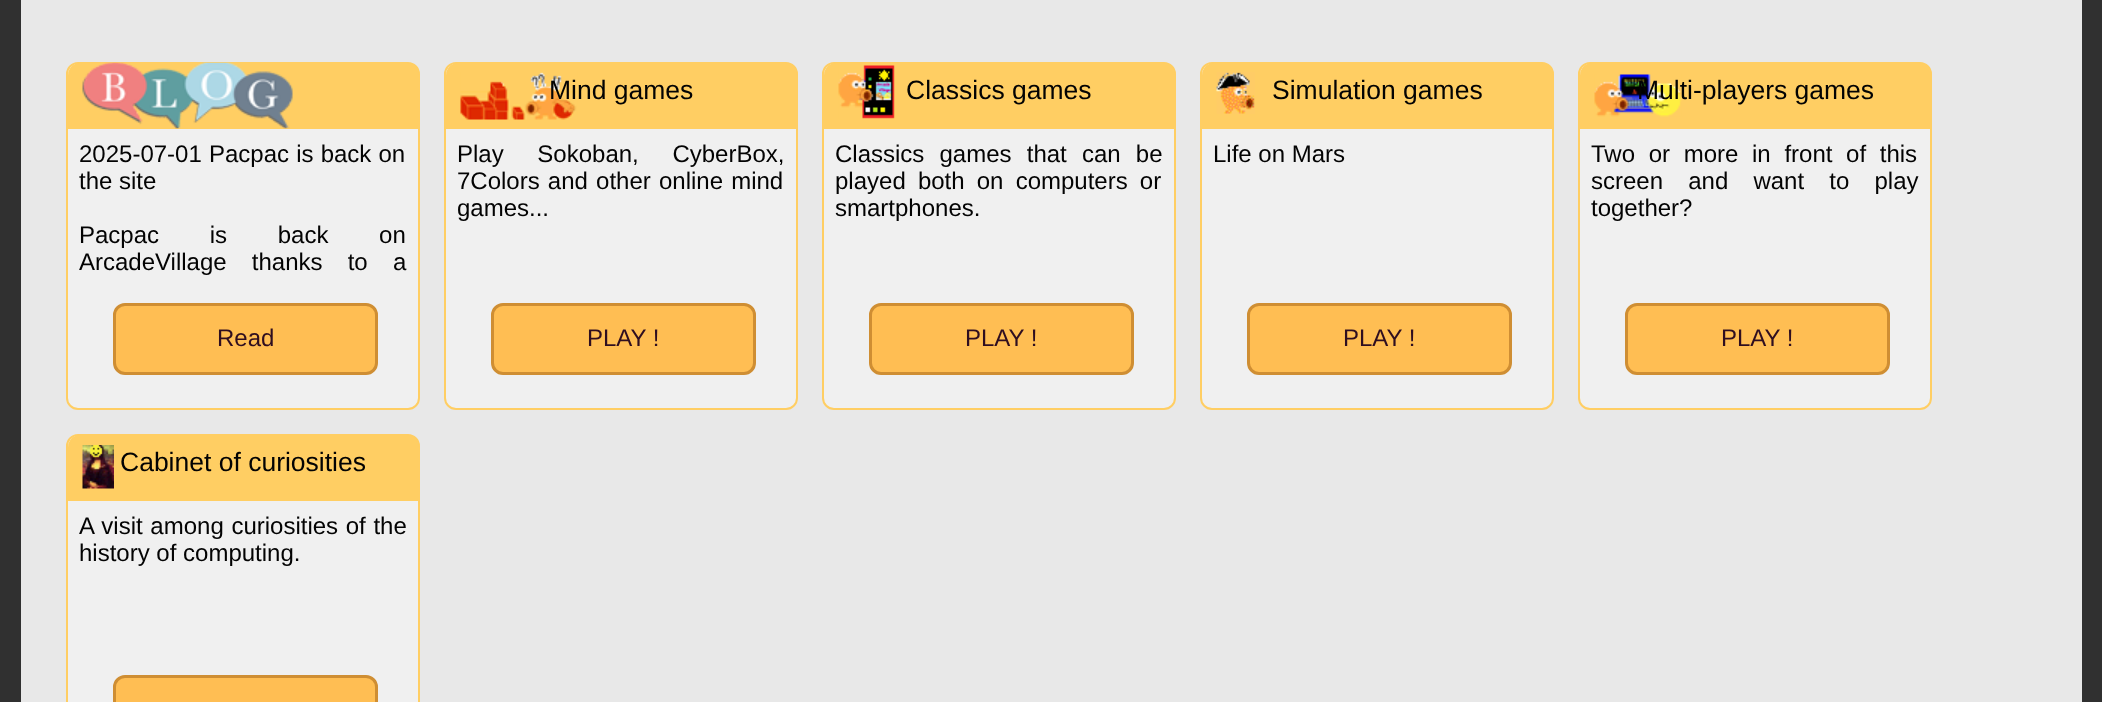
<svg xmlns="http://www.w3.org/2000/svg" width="2102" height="702">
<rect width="100%" height="100%" fill="#303030"/>
<rect x="21" width="2061" height="702" fill="#e8e8e8"/>
<rect x="67" y="63" width="352" height="346" rx="11" fill="#f0f0f0" stroke="#ffce63" stroke-width="2"/>
<path d="M80 63h327c6.5 0 12 5.5 12 12v54h-351v-54c0-6.5 5.5-12 12-12z" fill="#ffce63"/>
<image x="82" y="62" width="211" height="67" href="media/1.png"/>
<text x="79" y="162" word-spacing="0.5" style="font-family:Liberation Sans;font-size:24px;fill:#030303">2025-07-01 Pacpac is back on</text>
<text x="79" y="189" style="font-family:Liberation Sans;font-size:24px;fill:#030303">the site</text>
<text x="79" y="243" word-spacing="44" style="font-family:Liberation Sans;font-size:24px;fill:#030303">Pacpac is back on</text>
<text x="79" y="270" word-spacing="18.5" style="font-family:Liberation Sans;font-size:24px;fill:#030303">ArcadeVillage thanks to a</text>
<rect x="114.5" y="304.5" width="262" height="69" rx="10.5" fill="#ffbe53" stroke="#cf8e33" stroke-width="3"/>
<text x="217" y="346" style="font-family:Liberation Sans;font-size:24px;fill:#2f0e20">Read</text>
<rect x="445" y="63" width="352" height="346" rx="11" fill="#f0f0f0" stroke="#ffce63" stroke-width="2"/>
<path d="M458 63h327c6.5 0 12 5.5 12 12v54h-351v-54c0-6.5 5.5-12 12-12z" fill="#ffce63"/>
<image x="460" y="72" width="118" height="48" href="media/2.png"/>
<text x="549" y="99" style="font-family:Liberation Sans;font-size:26.5px;fill:#030303">Mind games</text>
<text x="457" y="162" word-spacing="27" style="font-family:Liberation Sans;font-size:24px;fill:#030303">Play Sokoban, CyberBox,</text>
<text x="457" y="189" word-spacing="1.5" style="font-family:Liberation Sans;font-size:24px;fill:#030303">7Colors and other online mind</text>
<text x="457" y="216" style="font-family:Liberation Sans;font-size:24px;fill:#030303">games...</text>
<rect x="492.5" y="304.5" width="262" height="69" rx="10.5" fill="#ffbe53" stroke="#cf8e33" stroke-width="3"/>
<text x="587" y="346" style="font-family:Liberation Sans;font-size:24px;fill:#2f0e20">PLAY !</text>
<rect x="823" y="63" width="352" height="346" rx="11" fill="#f0f0f0" stroke="#ffce63" stroke-width="2"/>
<path d="M836 63h327c6.5 0 12 5.5 12 12v54h-351v-54c0-6.5 5.5-12 12-12z" fill="#ffce63"/>
<image x="838" y="65" width="57" height="54" href="media/3.png"/>
<text x="906" y="99" style="font-family:Liberation Sans;font-size:26.5px;fill:#030303">Classics games</text>
<text x="835" y="162" word-spacing="8.5" style="font-family:Liberation Sans;font-size:24px;fill:#030303">Classics games that can be</text>
<text x="835" y="189" word-spacing="5.5" style="font-family:Liberation Sans;font-size:24px;fill:#030303">played both on computers or</text>
<text x="835" y="216" style="font-family:Liberation Sans;font-size:24px;fill:#030303">smartphones.</text>
<rect x="870.5" y="304.5" width="262" height="69" rx="10.5" fill="#ffbe53" stroke="#cf8e33" stroke-width="3"/>
<text x="965" y="346" style="font-family:Liberation Sans;font-size:24px;fill:#2f0e20">PLAY !</text>
<rect x="1201" y="63" width="352" height="346" rx="11" fill="#f0f0f0" stroke="#ffce63" stroke-width="2"/>
<path d="M1214 63h327c6.5 0 12 5.5 12 12v54h-351v-54c0-6.5 5.5-12 12-12z" fill="#ffce63"/>
<image x="1216" y="72" width="39" height="42" href="media/4.png"/>
<text x="1272" y="99" style="font-family:Liberation Sans;font-size:26.5px;fill:#030303">Simulation games</text>
<text x="1213" y="162" style="font-family:Liberation Sans;font-size:24px;fill:#030303">Life on Mars</text>
<rect x="1248.5" y="304.5" width="262" height="69" rx="10.5" fill="#ffbe53" stroke="#cf8e33" stroke-width="3"/>
<text x="1343" y="346" style="font-family:Liberation Sans;font-size:24px;fill:#2f0e20">PLAY !</text>
<rect x="1579" y="63" width="352" height="346" rx="11" fill="#f0f0f0" stroke="#ffce63" stroke-width="2"/>
<path d="M1592 63h327c6.5 0 12 5.5 12 12v54h-351v-54c0-6.5 5.5-12 12-12z" fill="#ffce63"/>
<image x="1594" y="74" width="88" height="43" href="media/5.png"/>
<text x="1637" y="99" style="font-family:Liberation Sans;font-size:26.5px;fill:#030303">Multi-players games</text>
<text x="1591" y="162" word-spacing="7" style="font-family:Liberation Sans;font-size:24px;fill:#030303">Two or more in front of this</text>
<text x="1591" y="189" word-spacing="18.5" style="font-family:Liberation Sans;font-size:24px;fill:#030303">screen and want to play</text>
<text x="1591" y="216" style="font-family:Liberation Sans;font-size:24px;fill:#030303">together?</text>
<rect x="1626.5" y="304.5" width="262" height="69" rx="10.5" fill="#ffbe53" stroke="#cf8e33" stroke-width="3"/>
<text x="1721" y="346" style="font-family:Liberation Sans;font-size:24px;fill:#2f0e20">PLAY !</text>
<rect x="67" y="435" width="352" height="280" rx="11" fill="#f0f0f0" stroke="#ffce63" stroke-width="2"/>
<path d="M80 435h327c6.5 0 12 5.5 12 12v54h-351v-54c0-6.5 5.5-12 12-12z" fill="#ffce63"/>
<image x="82" y="445" width="32" height="44" href="media/6.png"/>
<text x="120" y="471" style="font-family:Liberation Sans;font-size:26.5px;fill:#030303">Cabinet of curiosities</text>
<text x="79" y="534" word-spacing="1" style="font-family:Liberation Sans;font-size:24px;fill:#030303">A visit among curiosities of the</text>
<text x="79" y="561" style="font-family:Liberation Sans;font-size:24px;fill:#030303">history of computing.</text>
<rect x="114.5" y="676.5" width="262" height="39" rx="10.5" fill="#ffbe53" stroke="#cf8e33" stroke-width="3"/>
</svg>
